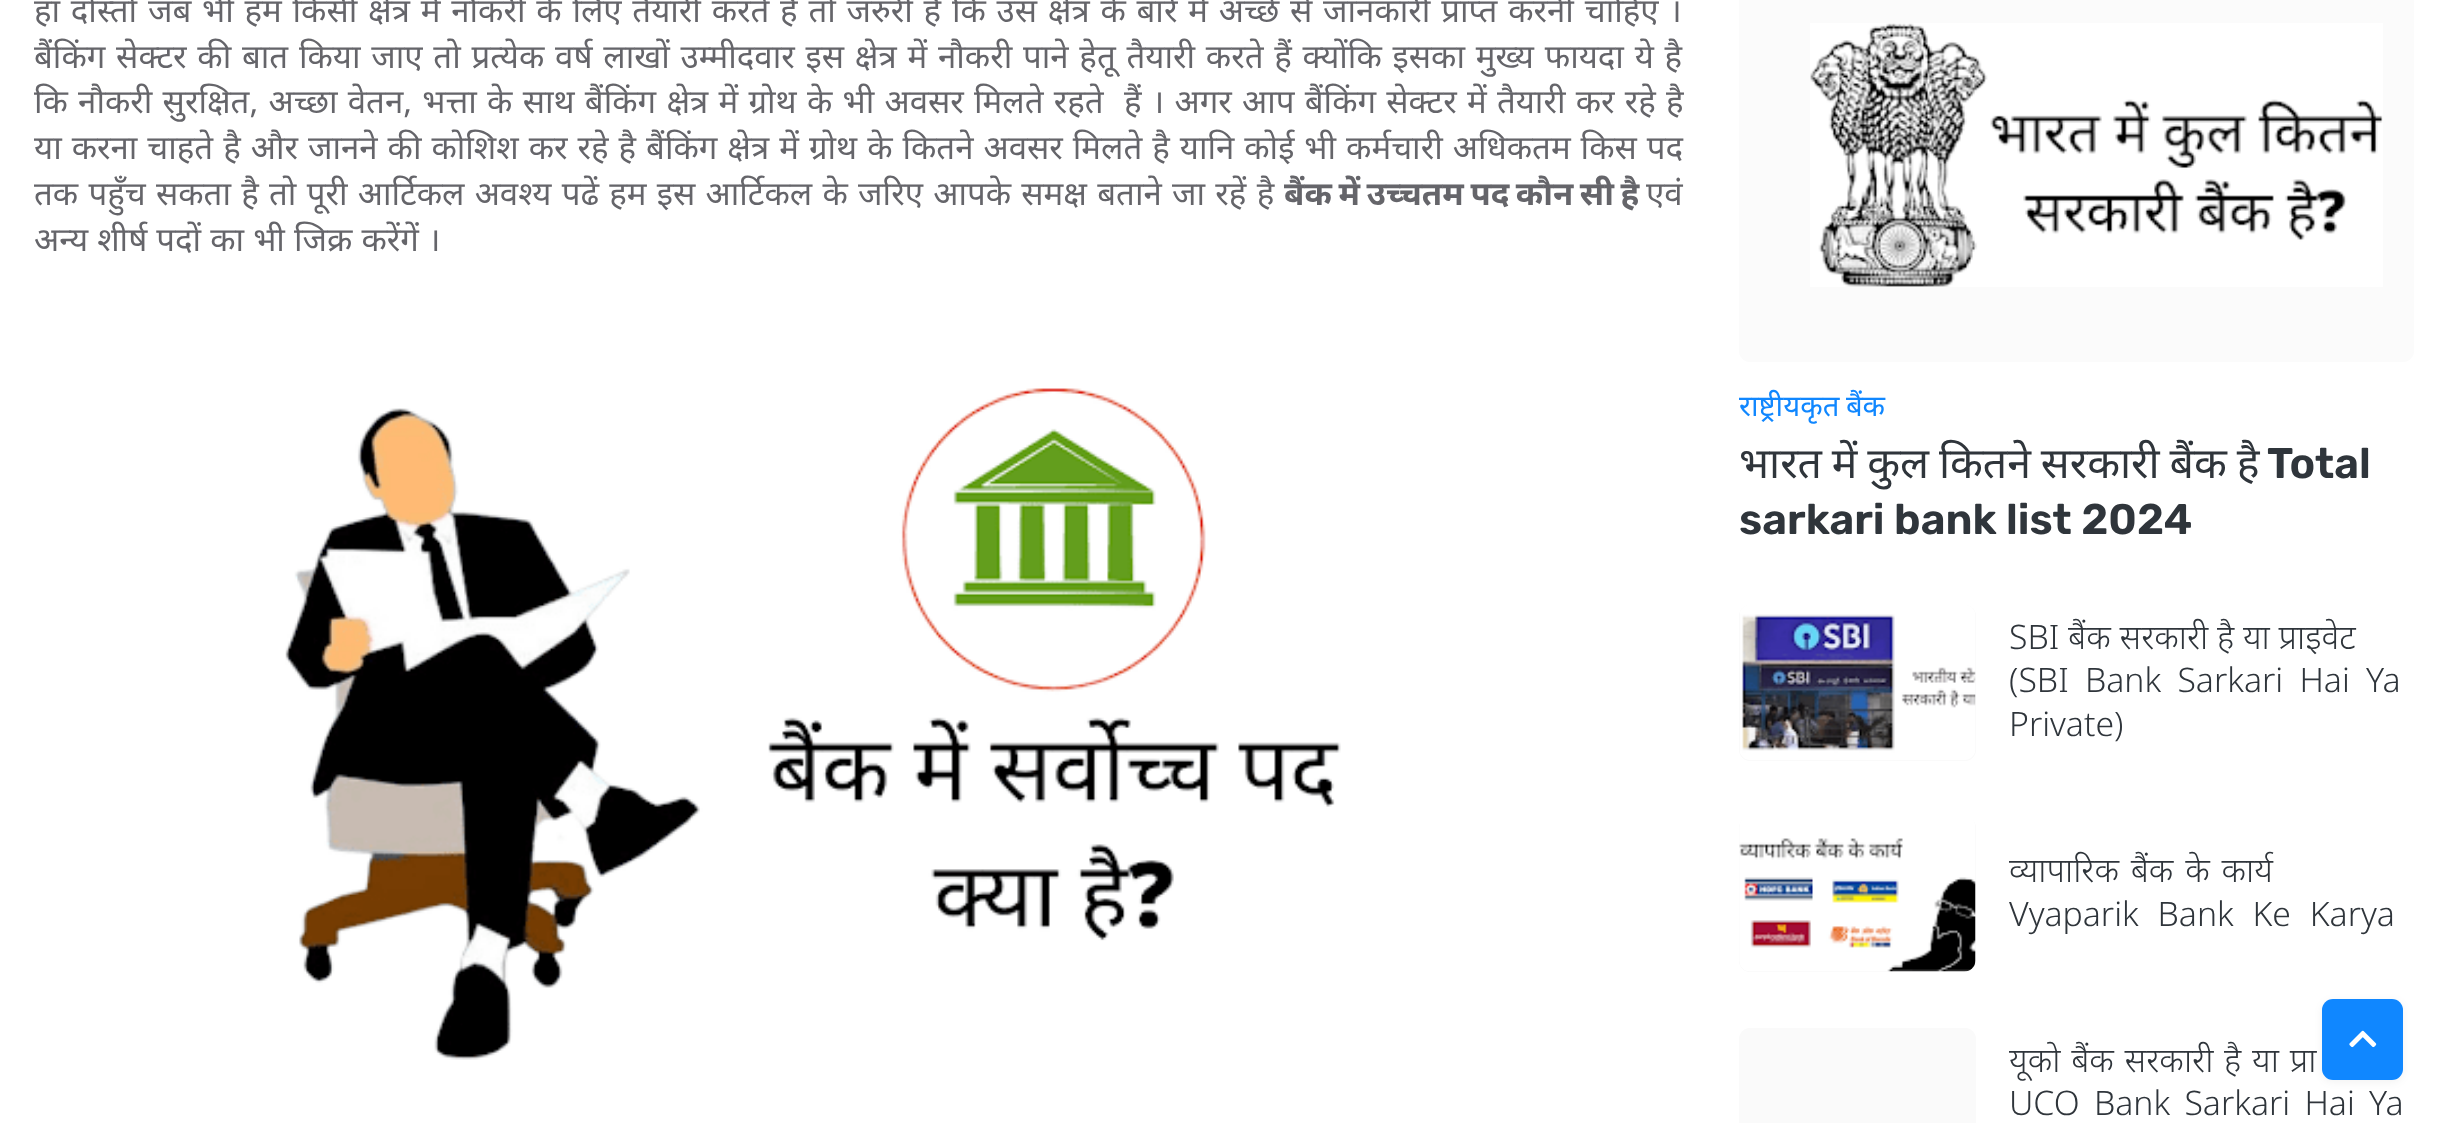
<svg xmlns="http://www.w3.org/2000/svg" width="2447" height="1123">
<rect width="100%" height="100%" fill="#fff"/>
<text x="34" y="22" word-spacing="2.2" style="font-family:Noto Sans;font-size:33px;fill:#65656a">हां दोस्तों जब भी हम किसी क्षेत्र में नौकरी के लिए तैयारी करते है तो जरुरी हैं कि उस क्षेत्र के बारें में अच्छे से जानकारी प्राप्त करनी चाहिए ।</text>
<text x="34" y="68" word-spacing="2.2" style="font-family:Noto Sans;font-size:33px;fill:#65656a">बैंकिंग सेक्टर की बात किया जाए तो प्रत्येक वर्ष लाखों उम्मीदवार इस क्षेत्र में नौकरी पाने हेतू तैयारी करते हैं क्योंकि इसका मुख्य फायदा ये है</text>
<text x="34" y="113" word-spacing="1.65" style="font-family:Noto Sans;font-size:33px;fill:#65656a" xml:space="preserve">कि नौकरी सुरक्षित, अच्छा वेतन, भत्ता के साथ बैंकिंग क्षेत्र में ग्रोथ के भी अवसर मिलते रहते  हैं । अगर आप बैंकिंग सेक्टर में तैयारी कर रहे है</text>
<text x="34" y="159" word-spacing="1.4" style="font-family:Noto Sans;font-size:33px;fill:#65656a">या करना चाहते है और जानने की कोशिश कर रहे है बैंकिंग क्षेत्र में ग्रोथ के कितने अवसर मिलते है यानि कोई भी कर्मचारी अधिकतम किस पद</text>
<text x="34" y="205" word-spacing="1.7" style="font-family:Noto Sans;font-size:33px;fill:#65656a">तक पहुँच सकता है तो पूरी आर्टिकल अवश्य पढें हम इस आर्टिकल के जरिए आपके समक्ष बताने जा रहें है</text>
<text x="1284" y="205" word-spacing="-2" style="font-family:Noto Sans;font-size:33px;font-weight:bold;fill:#65656a">बैंक में उच्चतम पद कौन सी है</text>
<text x="1646" y="205" style="font-family:Noto Sans;font-size:33px;fill:#65656a">एवं</text>
<text x="34" y="251" word-spacing="0.5" style="font-family:Noto Sans;font-size:33px;fill:#65656a">अन्य शीर्ष पदों का भी जिक्र करेंगें ।</text>
<image x="285" y="388" width="1056" height="672" href="media/1.png"/>
<rect x="1739" y="-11" width="675" height="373" rx="11" fill="#fbfbfb"/>
<image x="1810" y="23" width="573" height="264" href="media/2.png"/>
<text x="1739" y="416" word-spacing="-1" style="font-family:Noto Sans;font-size:29.25px;fill:#1087ff">राष्ट्रीयकृत बैंक</text>
<text x="1739" y="478" word-spacing="-1.25" style="font-family:Noto Sans;font-size:42.75px;fill:#2f353b">भारत में कुल कितने सरकारी बैंक है</text>
<text x="2267" y="478" style="font-family:Rubik;font-size:42.75px;font-weight:600;fill:#2f353b">Total</text>
<text x="1739" y="534" style="font-family:Rubik;font-size:42.75px;font-weight:600;fill:#2f353b">sarkari bank list 2024</text>
<rect x="1739" y="605" width="237" height="156" rx="11" fill="#fafafa"/>
<image x="1740" y="605" width="236" height="155" href="media/3.png"/>
<text x="2009" y="649" style="font-family:Noto Sans;font-size:33.75px;font-weight:300;fill:#2f353b">SBI बैंक सरकारी है या प्राइवेट</text>
<text x="2009" y="692" word-spacing="7.5" style="font-family:Noto Sans;font-size:33.75px;font-weight:300;fill:#2f353b">(SBI Bank Sarkari Hai Ya</text>
<text x="2009" y="736" style="font-family:Noto Sans;font-size:33.75px;font-weight:300;fill:#2f353b">Private)</text>
<rect x="1739" y="817" width="237" height="155" rx="11" fill="#fafafa"/>
<image x="1739" y="817" width="237" height="155" href="media/4.png"/>
<text x="2009" y="882" word-spacing="3" style="font-family:Noto Sans;font-size:33.75px;font-weight:300;fill:#2f353b">व्यापारिक बैंक के कार्य</text>
<text x="2009" y="926" word-spacing="10" style="font-family:Noto Sans;font-size:33.75px;font-weight:300;fill:#2f353b">Vyaparik Bank Ke Karya</text>
<rect x="1739" y="1028" width="237" height="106" rx="11" fill="#fafafa"/>
<text x="2009" y="1072" word-spacing="2" style="font-family:Noto Sans;font-size:33.75px;font-weight:300;fill:#2f353b">यूको बैंक सरकारी है या प्रा</text>
<text x="2009" y="1115" word-spacing="5.5" style="font-family:Noto Sans;font-size:33.75px;font-weight:300;fill:#2f353b">UCO Bank Sarkari Hai Ya</text>
<rect x="2322" y="1001" width="81" height="81" rx="11" fill="#0000000d" filter="blur(4.5px)"/>
<rect x="2322" y="999" width="81" height="81" rx="11" fill="#1087ff"/>
<image x="2349" y="1030" width="28" height="18" href="media/5.png"/>
</svg>
